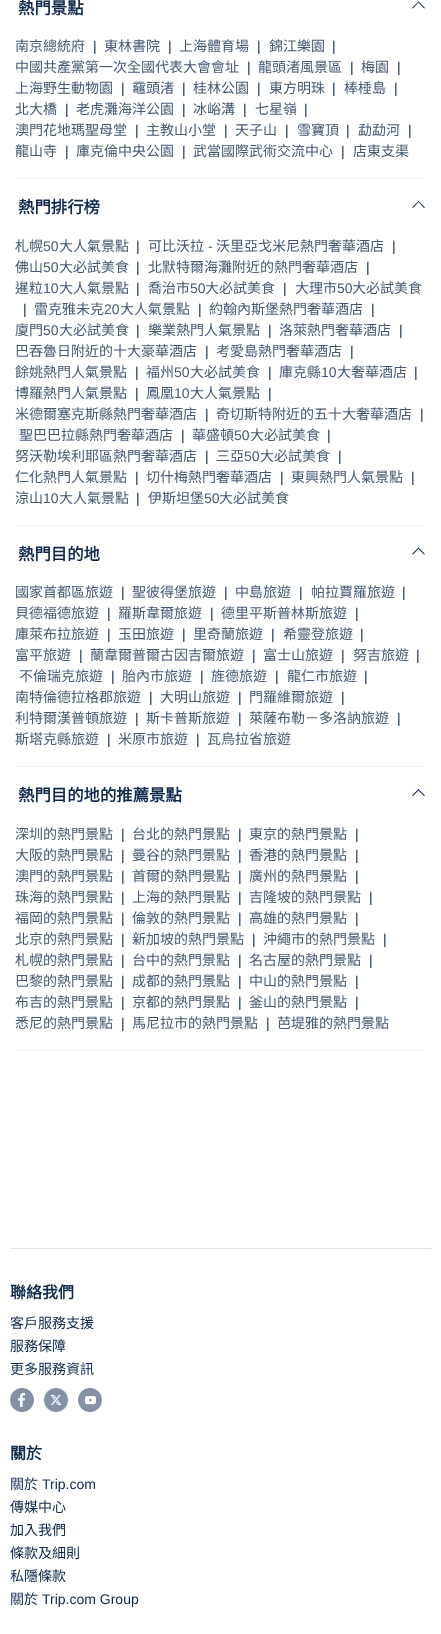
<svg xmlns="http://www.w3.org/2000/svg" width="441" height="1634">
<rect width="100%" height="100%" fill="#fff"/>
<rect x="15" y="178" width="411" height="1" fill="#f0f2f5"/>
<text x="18" y="14" style="font-family:Noto Sans CJK HK;font-size:16.4px;font-weight:bold;fill:#0f294d">熱門景點</text>
<path d="M412 8l6.5-6.5l.5 .5l-6 6.5z" fill="#0f294d"/>
<path d="M418 2l.5-.5l6.5 6.5l-1 .5z" fill="#0f294d"/>
<text x="15" y="51" style="font-family:Noto Sans CJK HK;font-size:14px;fill:#455873">南京總統府</text>
<text x="93" y="51" style="font-family:Liberation Sans;font-size:14px;fill:#0f294d">|</text>
<text x="104" y="51" style="font-family:Noto Sans CJK HK;font-size:14px;fill:#455873">東林書院</text>
<text x="168" y="51" style="font-family:Liberation Sans;font-size:14px;fill:#0f294d">|</text>
<text x="179" y="51" style="font-family:Noto Sans CJK HK;font-size:14px;fill:#455873">上海體育場</text>
<text x="257" y="51" style="font-family:Liberation Sans;font-size:14px;fill:#0f294d">|</text>
<text x="269" y="51" style="font-family:Noto Sans CJK HK;font-size:14px;fill:#455873">錦江樂園</text>
<text x="332" y="51" style="font-family:Liberation Sans;font-size:14px;fill:#0f294d">|</text>
<text x="15" y="72" style="font-family:Noto Sans CJK HK;font-size:14px;fill:#455873">中國共產黨第一次全國代表大會會址</text>
<text x="247" y="72" style="font-family:Liberation Sans;font-size:14px;fill:#0f294d">|</text>
<text x="258" y="72" style="font-family:Noto Sans CJK HK;font-size:14px;fill:#455873">龍頭渚風景區</text>
<text x="350" y="72" style="font-family:Liberation Sans;font-size:14px;fill:#0f294d">|</text>
<text x="361" y="72" style="font-family:Noto Sans CJK HK;font-size:14px;fill:#455873">梅園</text>
<text x="397" y="72" style="font-family:Liberation Sans;font-size:14px;fill:#0f294d">|</text>
<text x="15" y="93" style="font-family:Noto Sans CJK HK;font-size:14px;fill:#455873">上海野生動物園</text>
<text x="121" y="93" style="font-family:Liberation Sans;font-size:14px;fill:#0f294d">|</text>
<text x="132" y="93" style="font-family:Noto Sans CJK HK;font-size:14px;fill:#455873">黿頭渚</text>
<text x="182" y="93" style="font-family:Liberation Sans;font-size:14px;fill:#0f294d">|</text>
<text x="193" y="93" style="font-family:Noto Sans CJK HK;font-size:14px;fill:#455873">桂林公園</text>
<text x="257" y="93" style="font-family:Liberation Sans;font-size:14px;fill:#0f294d">|</text>
<text x="269" y="93" style="font-family:Noto Sans CJK HK;font-size:14px;fill:#455873">東方明珠</text>
<text x="332" y="93" style="font-family:Liberation Sans;font-size:14px;fill:#0f294d">|</text>
<text x="344" y="93" style="font-family:Noto Sans CJK HK;font-size:14px;fill:#455873">棒棰島</text>
<text x="394" y="93" style="font-family:Liberation Sans;font-size:14px;fill:#0f294d">|</text>
<text x="15" y="114" style="font-family:Noto Sans CJK HK;font-size:14px;fill:#455873">北大橋</text>
<text x="65" y="114" style="font-family:Liberation Sans;font-size:14px;fill:#0f294d">|</text>
<text x="76" y="114" style="font-family:Noto Sans CJK HK;font-size:14px;fill:#455873">老虎灘海洋公園</text>
<text x="182" y="114" style="font-family:Liberation Sans;font-size:14px;fill:#0f294d">|</text>
<text x="193" y="114" style="font-family:Noto Sans CJK HK;font-size:14px;fill:#455873">冰峪溝</text>
<text x="243" y="114" style="font-family:Liberation Sans;font-size:14px;fill:#0f294d">|</text>
<text x="255" y="114" style="font-family:Noto Sans CJK HK;font-size:14px;fill:#455873">七星嶺</text>
<text x="304" y="114" style="font-family:Liberation Sans;font-size:14px;fill:#0f294d">|</text>
<text x="15" y="135" style="font-family:Noto Sans CJK HK;font-size:14px;fill:#455873">澳門花地瑪聖母堂</text>
<text x="135" y="135" style="font-family:Liberation Sans;font-size:14px;fill:#0f294d">|</text>
<text x="146" y="135" style="font-family:Noto Sans CJK HK;font-size:14px;fill:#455873">主教山小堂</text>
<text x="224" y="135" style="font-family:Liberation Sans;font-size:14px;fill:#0f294d">|</text>
<text x="235" y="135" style="font-family:Noto Sans CJK HK;font-size:14px;fill:#455873">天子山</text>
<text x="285" y="135" style="font-family:Liberation Sans;font-size:14px;fill:#0f294d">|</text>
<text x="297" y="135" style="font-family:Noto Sans CJK HK;font-size:14px;fill:#455873">雪寶頂</text>
<text x="346" y="135" style="font-family:Liberation Sans;font-size:14px;fill:#0f294d">|</text>
<text x="358" y="135" style="font-family:Noto Sans CJK HK;font-size:14px;fill:#455873">勐勐河</text>
<text x="408" y="135" style="font-family:Liberation Sans;font-size:14px;fill:#0f294d">|</text>
<text x="15" y="156" style="font-family:Noto Sans CJK HK;font-size:14px;fill:#455873">龍山寺</text>
<text x="65" y="156" style="font-family:Liberation Sans;font-size:14px;fill:#0f294d">|</text>
<text x="76" y="156" style="font-family:Noto Sans CJK HK;font-size:14px;fill:#455873">庫克倫中央公園</text>
<text x="182" y="156" style="font-family:Liberation Sans;font-size:14px;fill:#0f294d">|</text>
<text x="193" y="156" style="font-family:Noto Sans CJK HK;font-size:14px;fill:#455873">武當國際武術交流中心</text>
<text x="341" y="156" style="font-family:Liberation Sans;font-size:14px;fill:#0f294d">|</text>
<text x="353" y="156" style="font-family:Noto Sans CJK HK;font-size:14px;fill:#455873">店東支渠</text>
<rect x="15" y="525" width="411" height="1" fill="#f0f2f5"/>
<text x="18" y="213" style="font-family:Noto Sans CJK HK;font-size:16.4px;font-weight:bold;fill:#0f294d">熱門排行榜</text>
<path d="M412 207.5l6.5-6.5l.5 .5l-6 6.5z" fill="#0f294d"/>
<path d="M418 201.5l.5-.5l6.5 6.5l-1 .5z" fill="#0f294d"/>
<text x="15" y="251" style="font-family:Noto Sans CJK HK;font-size:14px;fill:#455873">札幌</text>
<text x="43" y="251" style="font-family:Liberation Sans;font-size:14px;fill:#455873">50</text>
<text x="59" y="251" style="font-family:Noto Sans CJK HK;font-size:14px;fill:#455873">大人氣景點</text>
<text x="136" y="251" style="font-family:Liberation Sans;font-size:14px;fill:#0f294d">|</text>
<text x="148" y="251" style="font-family:Noto Sans CJK HK;font-size:14px;fill:#455873">可比沃拉</text>
<text x="208" y="251" style="font-family:Liberation Sans;font-size:14px;fill:#455873">-</text>
<text x="216" y="251" style="font-family:Noto Sans CJK HK;font-size:14px;fill:#455873">沃里亞戈米尼熱門奢華酒店</text>
<text x="392" y="251" style="font-family:Liberation Sans;font-size:14px;fill:#0f294d">|</text>
<text x="15" y="272" style="font-family:Noto Sans CJK HK;font-size:14px;fill:#455873">佛山</text>
<text x="43" y="272" style="font-family:Liberation Sans;font-size:14px;fill:#455873">50</text>
<text x="59" y="272" style="font-family:Noto Sans CJK HK;font-size:14px;fill:#455873">大必試美食</text>
<text x="136" y="272" style="font-family:Liberation Sans;font-size:14px;fill:#0f294d">|</text>
<text x="148" y="272" style="font-family:Noto Sans CJK HK;font-size:14px;fill:#455873">北默特爾海灘附近的熱門奢華酒店</text>
<text x="366" y="272" style="font-family:Liberation Sans;font-size:14px;fill:#0f294d">|</text>
<text x="15" y="293" style="font-family:Noto Sans CJK HK;font-size:14px;fill:#455873">暹粒</text>
<text x="43" y="293" style="font-family:Liberation Sans;font-size:14px;fill:#455873">10</text>
<text x="59" y="293" style="font-family:Noto Sans CJK HK;font-size:14px;fill:#455873">大人氣景點</text>
<text x="136" y="293" style="font-family:Liberation Sans;font-size:14px;fill:#0f294d">|</text>
<text x="295" y="293" style="font-family:Noto Sans CJK HK;font-size:14px;fill:#455873">大理市</text>
<text x="337" y="293" style="font-family:Liberation Sans;font-size:14px;fill:#455873">50</text>
<text x="352" y="293" style="font-family:Noto Sans CJK HK;font-size:14px;fill:#455873">大必試美食</text>
<text x="23" y="314" style="font-family:Liberation Sans;font-size:14px;fill:#0f294d">|</text>
<text x="148" y="293" style="font-family:Noto Sans CJK HK;font-size:14px;fill:#455873">喬治市</text>
<text x="190" y="293" style="font-family:Liberation Sans;font-size:14px;fill:#455873">50</text>
<text x="205" y="293" style="font-family:Noto Sans CJK HK;font-size:14px;fill:#455873">大必試美食</text>
<text x="283" y="293" style="font-family:Liberation Sans;font-size:14px;fill:#0f294d">|</text>
<text x="34" y="314" style="font-family:Noto Sans CJK HK;font-size:14px;fill:#455873">雷克雅未克</text>
<text x="104" y="314" style="font-family:Liberation Sans;font-size:14px;fill:#455873">20</text>
<text x="120" y="314" style="font-family:Noto Sans CJK HK;font-size:14px;fill:#455873">大人氣景點</text>
<text x="198" y="314" style="font-family:Liberation Sans;font-size:14px;fill:#0f294d">|</text>
<text x="209" y="314" style="font-family:Noto Sans CJK HK;font-size:14px;fill:#455873">約翰內斯堡熱門奢華酒店</text>
<text x="371" y="314" style="font-family:Liberation Sans;font-size:14px;fill:#0f294d">|</text>
<text x="15" y="335" style="font-family:Noto Sans CJK HK;font-size:14px;fill:#455873">廈門</text>
<text x="43" y="335" style="font-family:Liberation Sans;font-size:14px;fill:#455873">50</text>
<text x="59" y="335" style="font-family:Noto Sans CJK HK;font-size:14px;fill:#455873">大必試美食</text>
<text x="136" y="335" style="font-family:Liberation Sans;font-size:14px;fill:#0f294d">|</text>
<text x="148" y="335" style="font-family:Noto Sans CJK HK;font-size:14px;fill:#455873">樂業熱門人氣景點</text>
<text x="268" y="335" style="font-family:Liberation Sans;font-size:14px;fill:#0f294d">|</text>
<text x="279" y="335" style="font-family:Noto Sans CJK HK;font-size:14px;fill:#455873">洛萊熱門奢華酒店</text>
<text x="399" y="335" style="font-family:Liberation Sans;font-size:14px;fill:#0f294d">|</text>
<text x="15" y="356" style="font-family:Noto Sans CJK HK;font-size:14px;fill:#455873">巴吞魯日附近的十大豪華酒店</text>
<text x="205" y="356" style="font-family:Liberation Sans;font-size:14px;fill:#0f294d">|</text>
<text x="216" y="356" style="font-family:Noto Sans CJK HK;font-size:14px;fill:#455873">考愛島熱門奢華酒店</text>
<text x="350" y="356" style="font-family:Liberation Sans;font-size:14px;fill:#0f294d">|</text>
<text x="15" y="377" style="font-family:Noto Sans CJK HK;font-size:14px;fill:#455873">餘姚熱門人氣景點</text>
<text x="135" y="377" style="font-family:Liberation Sans;font-size:14px;fill:#0f294d">|</text>
<text x="146" y="377" style="font-family:Noto Sans CJK HK;font-size:14px;fill:#455873">福州</text>
<text x="174" y="377" style="font-family:Liberation Sans;font-size:14px;fill:#455873">50</text>
<text x="190" y="377" style="font-family:Noto Sans CJK HK;font-size:14px;fill:#455873">大必試美食</text>
<text x="268" y="377" style="font-family:Liberation Sans;font-size:14px;fill:#0f294d">|</text>
<text x="279" y="377" style="font-family:Noto Sans CJK HK;font-size:14px;fill:#455873">庫克縣</text>
<text x="321" y="377" style="font-family:Liberation Sans;font-size:14px;fill:#455873">10</text>
<text x="337" y="377" style="font-family:Noto Sans CJK HK;font-size:14px;fill:#455873">大奢華酒店</text>
<text x="414" y="377" style="font-family:Liberation Sans;font-size:14px;fill:#0f294d">|</text>
<text x="15" y="398" style="font-family:Noto Sans CJK HK;font-size:14px;fill:#455873">博羅熱門人氣景點</text>
<text x="135" y="398" style="font-family:Liberation Sans;font-size:14px;fill:#0f294d">|</text>
<text x="146" y="398" style="font-family:Noto Sans CJK HK;font-size:14px;fill:#455873">鳳凰</text>
<text x="174" y="398" style="font-family:Liberation Sans;font-size:14px;fill:#455873">10</text>
<text x="190" y="398" style="font-family:Noto Sans CJK HK;font-size:14px;fill:#455873">大人氣景點</text>
<text x="268" y="398" style="font-family:Liberation Sans;font-size:14px;fill:#0f294d">|</text>
<text x="15" y="419" style="font-family:Noto Sans CJK HK;font-size:14px;fill:#455873">米德爾塞克斯縣熱門奢華酒店</text>
<text x="205" y="419" style="font-family:Liberation Sans;font-size:14px;fill:#0f294d">|</text>
<text x="216" y="419" style="font-family:Noto Sans CJK HK;font-size:14px;fill:#455873">奇切斯特附近的五十大奢華酒店</text>
<text x="420" y="419" style="font-family:Liberation Sans;font-size:14px;fill:#0f294d">|</text>
<text x="19" y="440" style="font-family:Noto Sans CJK HK;font-size:14px;fill:#455873">聖巴巴拉縣熱門奢華酒店</text>
<text x="181" y="440" style="font-family:Liberation Sans;font-size:14px;fill:#0f294d">|</text>
<text x="192" y="440" style="font-family:Noto Sans CJK HK;font-size:14px;fill:#455873">華盛頓</text>
<text x="234" y="440" style="font-family:Liberation Sans;font-size:14px;fill:#455873">50</text>
<text x="250" y="440" style="font-family:Noto Sans CJK HK;font-size:14px;fill:#455873">大必試美食</text>
<text x="327" y="440" style="font-family:Liberation Sans;font-size:14px;fill:#0f294d">|</text>
<text x="15" y="461" style="font-family:Noto Sans CJK HK;font-size:14px;fill:#455873">努沃勒埃利耶區熱門奢華酒店</text>
<text x="205" y="461" style="font-family:Liberation Sans;font-size:14px;fill:#0f294d">|</text>
<text x="216" y="461" style="font-family:Noto Sans CJK HK;font-size:14px;fill:#455873">三亞</text>
<text x="244" y="461" style="font-family:Liberation Sans;font-size:14px;fill:#455873">50</text>
<text x="260" y="461" style="font-family:Noto Sans CJK HK;font-size:14px;fill:#455873">大必試美食</text>
<text x="338" y="461" style="font-family:Liberation Sans;font-size:14px;fill:#0f294d">|</text>
<text x="15" y="482" style="font-family:Noto Sans CJK HK;font-size:14px;fill:#455873">仁化熱門人氣景點</text>
<text x="135" y="482" style="font-family:Liberation Sans;font-size:14px;fill:#0f294d">|</text>
<text x="146" y="482" style="font-family:Noto Sans CJK HK;font-size:14px;fill:#455873">切什梅熱門奢華酒店</text>
<text x="280" y="482" style="font-family:Liberation Sans;font-size:14px;fill:#0f294d">|</text>
<text x="291" y="482" style="font-family:Noto Sans CJK HK;font-size:14px;fill:#455873">東興熱門人氣景點</text>
<text x="411" y="482" style="font-family:Liberation Sans;font-size:14px;fill:#0f294d">|</text>
<text x="15" y="503" style="font-family:Noto Sans CJK HK;font-size:14px;fill:#455873">涼山</text>
<text x="43" y="503" style="font-family:Liberation Sans;font-size:14px;fill:#455873">10</text>
<text x="59" y="503" style="font-family:Noto Sans CJK HK;font-size:14px;fill:#455873">大人氣景點</text>
<text x="136" y="503" style="font-family:Liberation Sans;font-size:14px;fill:#0f294d">|</text>
<text x="148" y="503" style="font-family:Noto Sans CJK HK;font-size:14px;fill:#455873">伊斯坦堡</text>
<text x="204" y="503" style="font-family:Liberation Sans;font-size:14px;fill:#455873">50</text>
<text x="219" y="503" style="font-family:Noto Sans CJK HK;font-size:14px;fill:#455873">大必試美食</text>
<rect x="15" y="766" width="411" height="1" fill="#f0f2f5"/>
<text x="18" y="560" style="font-family:Noto Sans CJK HK;font-size:16.4px;font-weight:bold;fill:#0f294d">熱門目的地</text>
<path d="M412 554l6.5-6.5l.5 1l-6 6z" fill="#0f294d"/>
<path d="M418 548.5l.5-1l6.5 6.5l-1 .5z" fill="#0f294d"/>
<text x="15" y="597" style="font-family:Noto Sans CJK HK;font-size:14px;fill:#455873">國家首都區旅遊</text>
<text x="121" y="597" style="font-family:Liberation Sans;font-size:14px;fill:#0f294d">|</text>
<text x="132" y="597" style="font-family:Noto Sans CJK HK;font-size:14px;fill:#455873">聖彼得堡旅遊</text>
<text x="224" y="597" style="font-family:Liberation Sans;font-size:14px;fill:#0f294d">|</text>
<text x="235" y="597" style="font-family:Noto Sans CJK HK;font-size:14px;fill:#455873">中島旅遊</text>
<text x="299" y="597" style="font-family:Liberation Sans;font-size:14px;fill:#0f294d">|</text>
<text x="311" y="597" style="font-family:Noto Sans CJK HK;font-size:14px;fill:#455873">帕拉賈羅旅遊</text>
<text x="402" y="597" style="font-family:Liberation Sans;font-size:14px;fill:#0f294d">|</text>
<text x="15" y="618" style="font-family:Noto Sans CJK HK;font-size:14px;fill:#455873">貝德福德旅遊</text>
<text x="107" y="618" style="font-family:Liberation Sans;font-size:14px;fill:#0f294d">|</text>
<text x="118" y="618" style="font-family:Noto Sans CJK HK;font-size:14px;fill:#455873">羅斯韋爾旅遊</text>
<text x="210" y="618" style="font-family:Liberation Sans;font-size:14px;fill:#0f294d">|</text>
<text x="221" y="618" style="font-family:Noto Sans CJK HK;font-size:14px;fill:#455873">德里平斯普林斯旅遊</text>
<text x="355" y="618" style="font-family:Liberation Sans;font-size:14px;fill:#0f294d">|</text>
<text x="15" y="639" style="font-family:Noto Sans CJK HK;font-size:14px;fill:#455873">庫萊布拉旅遊</text>
<text x="107" y="639" style="font-family:Liberation Sans;font-size:14px;fill:#0f294d">|</text>
<text x="118" y="639" style="font-family:Noto Sans CJK HK;font-size:14px;fill:#455873">玉田旅遊</text>
<text x="182" y="639" style="font-family:Liberation Sans;font-size:14px;fill:#0f294d">|</text>
<text x="193" y="639" style="font-family:Noto Sans CJK HK;font-size:14px;fill:#455873">里奇蘭旅遊</text>
<text x="271" y="639" style="font-family:Liberation Sans;font-size:14px;fill:#0f294d">|</text>
<text x="283" y="639" style="font-family:Noto Sans CJK HK;font-size:14px;fill:#455873">希靈登旅遊</text>
<text x="360" y="639" style="font-family:Liberation Sans;font-size:14px;fill:#0f294d">|</text>
<text x="15" y="660" style="font-family:Noto Sans CJK HK;font-size:14px;fill:#455873">富平旅遊</text>
<text x="79" y="660" style="font-family:Liberation Sans;font-size:14px;fill:#0f294d">|</text>
<text x="90" y="660" style="font-family:Noto Sans CJK HK;font-size:14px;fill:#455873">蘭韋爾普爾古因吉爾旅遊</text>
<text x="252" y="660" style="font-family:Liberation Sans;font-size:14px;fill:#0f294d">|</text>
<text x="263" y="660" style="font-family:Noto Sans CJK HK;font-size:14px;fill:#455873">富士山旅遊</text>
<text x="341" y="660" style="font-family:Liberation Sans;font-size:14px;fill:#0f294d">|</text>
<text x="353" y="660" style="font-family:Noto Sans CJK HK;font-size:14px;fill:#455873">努吉旅遊</text>
<text x="416" y="660" style="font-family:Liberation Sans;font-size:14px;fill:#0f294d">|</text>
<text x="19" y="681" style="font-family:Noto Sans CJK HK;font-size:14px;fill:#455873">不倫瑞克旅遊</text>
<text x="111" y="681" style="font-family:Liberation Sans;font-size:14px;fill:#0f294d">|</text>
<text x="122" y="681" style="font-family:Noto Sans CJK HK;font-size:14px;fill:#455873">胎內市旅遊</text>
<text x="200" y="681" style="font-family:Liberation Sans;font-size:14px;fill:#0f294d">|</text>
<text x="211" y="681" style="font-family:Noto Sans CJK HK;font-size:14px;fill:#455873">旌德旅遊</text>
<text x="275" y="681" style="font-family:Liberation Sans;font-size:14px;fill:#0f294d">|</text>
<text x="287" y="681" style="font-family:Noto Sans CJK HK;font-size:14px;fill:#455873">龍仁市旅遊</text>
<text x="364" y="681" style="font-family:Liberation Sans;font-size:14px;fill:#0f294d">|</text>
<text x="15" y="702" style="font-family:Noto Sans CJK HK;font-size:14px;fill:#455873">南特倫德拉格郡旅遊</text>
<text x="149" y="702" style="font-family:Liberation Sans;font-size:14px;fill:#0f294d">|</text>
<text x="160" y="702" style="font-family:Noto Sans CJK HK;font-size:14px;fill:#455873">大明山旅遊</text>
<text x="238" y="702" style="font-family:Liberation Sans;font-size:14px;fill:#0f294d">|</text>
<text x="249" y="702" style="font-family:Noto Sans CJK HK;font-size:14px;fill:#455873">門羅維爾旅遊</text>
<text x="341" y="702" style="font-family:Liberation Sans;font-size:14px;fill:#0f294d">|</text>
<text x="15" y="723" style="font-family:Noto Sans CJK HK;font-size:14px;fill:#455873">利特爾漢普頓旅遊</text>
<text x="135" y="723" style="font-family:Liberation Sans;font-size:14px;fill:#0f294d">|</text>
<text x="146" y="723" style="font-family:Noto Sans CJK HK;font-size:14px;fill:#455873">斯卡普斯旅遊</text>
<text x="238" y="723" style="font-family:Liberation Sans;font-size:14px;fill:#0f294d">|</text>
<text x="249" y="723" style="font-family:Noto Sans CJK HK;font-size:14px;fill:#455873">萊薩布勒－多洛訥旅遊</text>
<text x="397" y="723" style="font-family:Liberation Sans;font-size:14px;fill:#0f294d">|</text>
<text x="15" y="744" style="font-family:Noto Sans CJK HK;font-size:14px;fill:#455873">斯塔克縣旅遊</text>
<text x="107" y="744" style="font-family:Liberation Sans;font-size:14px;fill:#0f294d">|</text>
<text x="118" y="744" style="font-family:Noto Sans CJK HK;font-size:14px;fill:#455873">米原市旅遊</text>
<text x="196" y="744" style="font-family:Liberation Sans;font-size:14px;fill:#0f294d">|</text>
<text x="207" y="744" style="font-family:Noto Sans CJK HK;font-size:14px;fill:#455873">瓦烏拉省旅遊</text>
<rect x="15" y="1050" width="411" height="1" fill="#f0f2f5"/>
<text x="18" y="801" style="font-family:Noto Sans CJK HK;font-size:16.4px;font-weight:bold;fill:#0f294d">熱門目的地的推薦景點</text>
<path d="M412 795.5l6.5-6.5l.5 1l-6 6z" fill="#0f294d"/>
<path d="M418 790l.5-1l6.5 6.5l-1 .5z" fill="#0f294d"/>
<text x="15" y="839" style="font-family:Noto Sans CJK HK;font-size:14px;fill:#455873">深圳的熱門景點</text>
<text x="121" y="839" style="font-family:Liberation Sans;font-size:14px;fill:#0f294d">|</text>
<text x="132" y="839" style="font-family:Noto Sans CJK HK;font-size:14px;fill:#455873">台北的熱門景點</text>
<text x="238" y="839" style="font-family:Liberation Sans;font-size:14px;fill:#0f294d">|</text>
<text x="249" y="839" style="font-family:Noto Sans CJK HK;font-size:14px;fill:#455873">東京的熱門景點</text>
<text x="355" y="839" style="font-family:Liberation Sans;font-size:14px;fill:#0f294d">|</text>
<text x="15" y="860" style="font-family:Noto Sans CJK HK;font-size:14px;fill:#455873">大阪的熱門景點</text>
<text x="121" y="860" style="font-family:Liberation Sans;font-size:14px;fill:#0f294d">|</text>
<text x="132" y="860" style="font-family:Noto Sans CJK HK;font-size:14px;fill:#455873">曼谷的熱門景點</text>
<text x="238" y="860" style="font-family:Liberation Sans;font-size:14px;fill:#0f294d">|</text>
<text x="249" y="860" style="font-family:Noto Sans CJK HK;font-size:14px;fill:#455873">香港的熱門景點</text>
<text x="355" y="860" style="font-family:Liberation Sans;font-size:14px;fill:#0f294d">|</text>
<text x="15" y="881" style="font-family:Noto Sans CJK HK;font-size:14px;fill:#455873">澳門的熱門景點</text>
<text x="121" y="881" style="font-family:Liberation Sans;font-size:14px;fill:#0f294d">|</text>
<text x="132" y="881" style="font-family:Noto Sans CJK HK;font-size:14px;fill:#455873">首爾的熱門景點</text>
<text x="238" y="881" style="font-family:Liberation Sans;font-size:14px;fill:#0f294d">|</text>
<text x="249" y="881" style="font-family:Noto Sans CJK HK;font-size:14px;fill:#455873">廣州的熱門景點</text>
<text x="355" y="881" style="font-family:Liberation Sans;font-size:14px;fill:#0f294d">|</text>
<text x="15" y="902" style="font-family:Noto Sans CJK HK;font-size:14px;fill:#455873">珠海的熱門景點</text>
<text x="121" y="902" style="font-family:Liberation Sans;font-size:14px;fill:#0f294d">|</text>
<text x="132" y="902" style="font-family:Noto Sans CJK HK;font-size:14px;fill:#455873">上海的熱門景點</text>
<text x="238" y="902" style="font-family:Liberation Sans;font-size:14px;fill:#0f294d">|</text>
<text x="249" y="902" style="font-family:Noto Sans CJK HK;font-size:14px;fill:#455873">吉隆坡的熱門景點</text>
<text x="369" y="902" style="font-family:Liberation Sans;font-size:14px;fill:#0f294d">|</text>
<text x="15" y="923" style="font-family:Noto Sans CJK HK;font-size:14px;fill:#455873">福岡的熱門景點</text>
<text x="121" y="923" style="font-family:Liberation Sans;font-size:14px;fill:#0f294d">|</text>
<text x="132" y="923" style="font-family:Noto Sans CJK HK;font-size:14px;fill:#455873">倫敦的熱門景點</text>
<text x="238" y="923" style="font-family:Liberation Sans;font-size:14px;fill:#0f294d">|</text>
<text x="249" y="923" style="font-family:Noto Sans CJK HK;font-size:14px;fill:#455873">高雄的熱門景點</text>
<text x="355" y="923" style="font-family:Liberation Sans;font-size:14px;fill:#0f294d">|</text>
<text x="15" y="944" style="font-family:Noto Sans CJK HK;font-size:14px;fill:#455873">北京的熱門景點</text>
<text x="121" y="944" style="font-family:Liberation Sans;font-size:14px;fill:#0f294d">|</text>
<text x="132" y="944" style="font-family:Noto Sans CJK HK;font-size:14px;fill:#455873">新加坡的熱門景點</text>
<text x="252" y="944" style="font-family:Liberation Sans;font-size:14px;fill:#0f294d">|</text>
<text x="263" y="944" style="font-family:Noto Sans CJK HK;font-size:14px;fill:#455873">沖繩市的熱門景點</text>
<text x="383" y="944" style="font-family:Liberation Sans;font-size:14px;fill:#0f294d">|</text>
<text x="15" y="965" style="font-family:Noto Sans CJK HK;font-size:14px;fill:#455873">札幌的熱門景點</text>
<text x="121" y="965" style="font-family:Liberation Sans;font-size:14px;fill:#0f294d">|</text>
<text x="132" y="965" style="font-family:Noto Sans CJK HK;font-size:14px;fill:#455873">台中的熱門景點</text>
<text x="238" y="965" style="font-family:Liberation Sans;font-size:14px;fill:#0f294d">|</text>
<text x="249" y="965" style="font-family:Noto Sans CJK HK;font-size:14px;fill:#455873">名古屋的熱門景點</text>
<text x="369" y="965" style="font-family:Liberation Sans;font-size:14px;fill:#0f294d">|</text>
<text x="15" y="986" style="font-family:Noto Sans CJK HK;font-size:14px;fill:#455873">巴黎的熱門景點</text>
<text x="121" y="986" style="font-family:Liberation Sans;font-size:14px;fill:#0f294d">|</text>
<text x="132" y="986" style="font-family:Noto Sans CJK HK;font-size:14px;fill:#455873">成都的熱門景點</text>
<text x="238" y="986" style="font-family:Liberation Sans;font-size:14px;fill:#0f294d">|</text>
<text x="249" y="986" style="font-family:Noto Sans CJK HK;font-size:14px;fill:#455873">中山的熱門景點</text>
<text x="355" y="986" style="font-family:Liberation Sans;font-size:14px;fill:#0f294d">|</text>
<text x="15" y="1007" style="font-family:Noto Sans CJK HK;font-size:14px;fill:#455873">布吉的熱門景點</text>
<text x="121" y="1007" style="font-family:Liberation Sans;font-size:14px;fill:#0f294d">|</text>
<text x="132" y="1007" style="font-family:Noto Sans CJK HK;font-size:14px;fill:#455873">京都的熱門景點</text>
<text x="238" y="1007" style="font-family:Liberation Sans;font-size:14px;fill:#0f294d">|</text>
<text x="249" y="1007" style="font-family:Noto Sans CJK HK;font-size:14px;fill:#455873">釜山的熱門景點</text>
<text x="355" y="1007" style="font-family:Liberation Sans;font-size:14px;fill:#0f294d">|</text>
<text x="15" y="1028" style="font-family:Noto Sans CJK HK;font-size:14px;fill:#455873">悉尼的熱門景點</text>
<text x="121" y="1028" style="font-family:Liberation Sans;font-size:14px;fill:#0f294d">|</text>
<text x="132" y="1028" style="font-family:Noto Sans CJK HK;font-size:14px;fill:#455873">馬尼拉市的熱門景點</text>
<text x="266" y="1028" style="font-family:Liberation Sans;font-size:14px;fill:#0f294d">|</text>
<text x="277" y="1028" style="font-family:Noto Sans CJK HK;font-size:14px;fill:#455873">芭堤雅的熱門景點</text>
<rect x="10" y="1248" width="421" height="1" fill="#e4e4e4"/>
<text x="10" y="1298" style="font-family:Noto Sans CJK HK;font-size:16px;font-weight:bold;fill:#0f294d">聯絡我們</text>
<text x="10" y="1328" style="font-family:Noto Sans CJK HK;font-size:14px;fill:#0f294d">客戶服務支援</text>
<text x="10" y="1351" style="font-family:Noto Sans CJK HK;font-size:14px;fill:#0f294d">服務保障</text>
<text x="10" y="1374" style="font-family:Noto Sans CJK HK;font-size:14px;fill:#0f294d">更多服務資訊</text>
<image x="10" y="1388" width="24" height="24" href="media/1.png"/>
<image x="44" y="1388" width="24" height="24" href="media/2.png"/>
<image x="78" y="1388" width="24" height="24" href="media/3.png"/>
<text x="10" y="1459" style="font-family:Noto Sans CJK HK;font-size:16px;font-weight:bold;fill:#0f294d">關於</text>
<text x="10" y="1489" style="font-family:Noto Sans CJK HK;font-size:14px;fill:#0f294d">關於</text>
<text x="42" y="1489" style="font-family:Liberation Sans;font-size:14px;fill:#0f294d">Trip.com</text>
<text x="10" y="1512" style="font-family:Noto Sans CJK HK;font-size:14px;fill:#0f294d">傳媒中心</text>
<text x="10" y="1535" style="font-family:Noto Sans CJK HK;font-size:14px;fill:#0f294d">加入我們</text>
<text x="10" y="1558" style="font-family:Noto Sans CJK HK;font-size:14px;fill:#0f294d">條款及細則</text>
<text x="10" y="1581" style="font-family:Noto Sans CJK HK;font-size:14px;fill:#0f294d">私隱條款</text>
<text x="10" y="1604" style="font-family:Noto Sans CJK HK;font-size:14px;fill:#0f294d">關於</text>
<text x="42" y="1604" style="font-family:Liberation Sans;font-size:14px;fill:#0f294d">Trip.com Group</text>
</svg>
